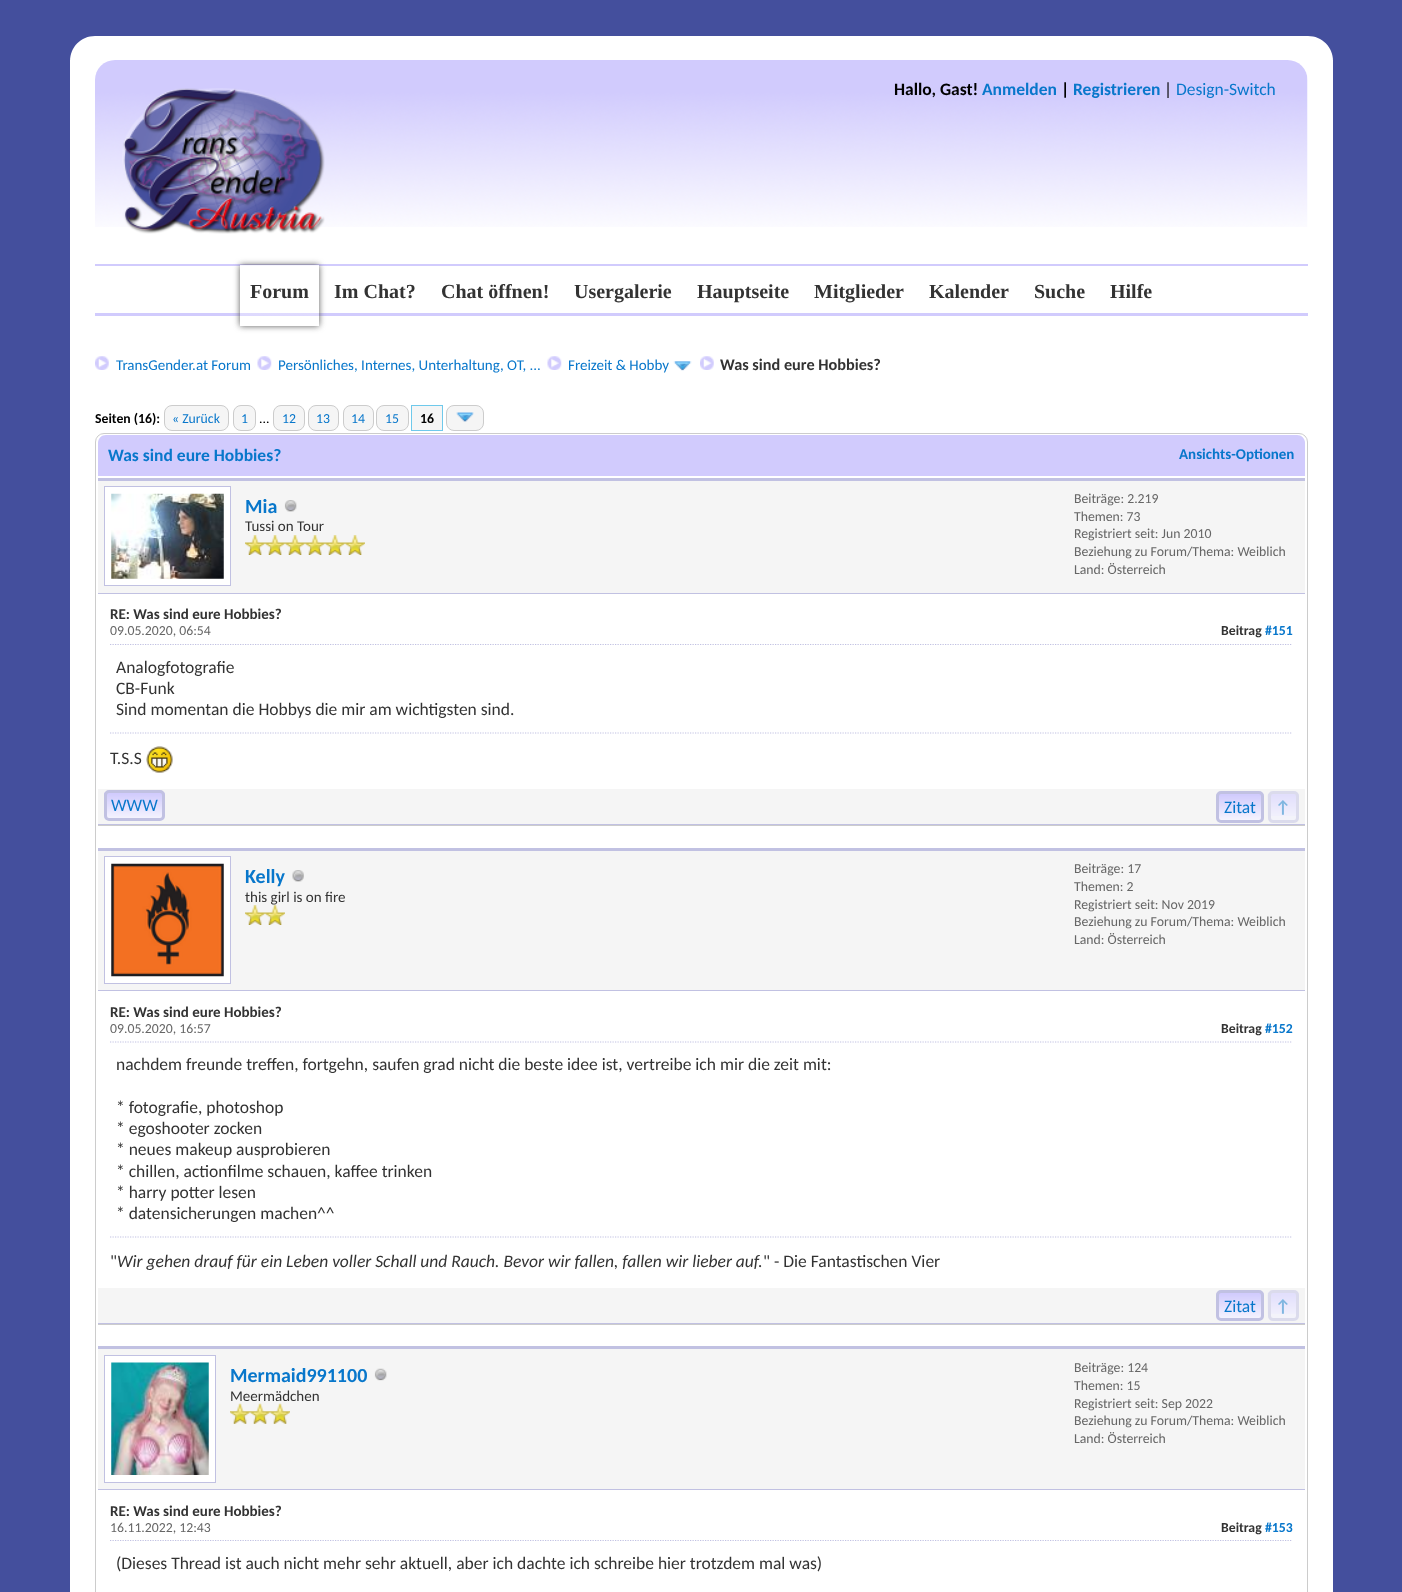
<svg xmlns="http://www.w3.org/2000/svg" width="1402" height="1592">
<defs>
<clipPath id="clip1"><path d="M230 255h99v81h-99zm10 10h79v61h-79z" clip-rule="evenodd"/></clipPath>
<linearGradient id="g1" gradientUnits="userSpaceOnUse" x1="279" y1="265" x2="279" y2="326"><stop offset="0" stop-color="#fff" stop-opacity="0.82"/><stop offset="1" stop-color="#fff" stop-opacity="0.16"/></linearGradient>
</defs>
<rect width="100%" height="100%" fill="#444f9d"/>
<path d="M95 36h1213c14 0 25 11 25 25h-1263c0-14 11-25 25-25z" fill="#fff"/>
<rect x="70" y="60" width="1263" height="1532" fill="#fff"/>
<image x="95" y="60" width="1213" height="167" href="media/1.png"/>
<image x="122" y="88" width="203" height="146" href="media/2.png"/>
<text x="894" y="95" style="font-family:Carlito;font-size:17.5px;font-weight:bold;fill:#000">Hallo, Gast!</text>
<text x="982" y="95" style="font-family:Carlito;font-size:17.5px;font-weight:bold;fill:#0877cb">Anmelden</text>
<text x="1061" y="95" style="font-family:Carlito;font-size:17.5px;font-weight:bold;fill:#000">|</text>
<text x="1073" y="95" style="font-family:Carlito;font-size:17.5px;font-weight:bold;fill:#0877cb">Registrieren</text>
<text x="1164" y="95" style="font-family:Carlito;font-size:17.5px;fill:#000">|</text>
<text x="1176" y="95" style="font-family:Carlito;font-size:17.5px;fill:#0877cb">Design-Switch</text>
<rect x="95" y="264" width="1213" height="2" fill="#d1cbfd"/>
<rect x="95" y="313" width="1213" height="3" fill="#d1cbfd"/>
<g clip-path="url(#clip1)">
<rect x="240" y="265" width="79" height="61" fill="#595959" filter="blur(3px)"/>
</g>
<rect x="240" y="265" width="79" height="60" fill="url(#g1)"/>
<text x="250" y="298" style="font-family:Liberation Serif;font-size:20px;font-weight:bold;fill:#333">Forum</text>
<text x="334" y="298" style="font-family:Liberation Serif;font-size:20px;font-weight:bold;fill:#333">Im Chat?</text>
<text x="441" y="298" style="font-family:Liberation Serif;font-size:20px;font-weight:bold;fill:#333">Chat öffnen!</text>
<text x="574" y="298" style="font-family:Liberation Serif;font-size:20px;font-weight:bold;fill:#333">Usergalerie</text>
<text x="697" y="298" style="font-family:Liberation Serif;font-size:20px;font-weight:bold;fill:#333">Hauptseite</text>
<text x="814" y="298" style="font-family:Liberation Serif;font-size:20px;font-weight:bold;fill:#333">Mitglieder</text>
<text x="929" y="298" style="font-family:Liberation Serif;font-size:20px;font-weight:bold;fill:#333">Kalender</text>
<text x="1034" y="298" style="font-family:Liberation Serif;font-size:20px;font-weight:bold;fill:#333">Suche</text>
<text x="1110" y="298" style="font-family:Liberation Serif;font-size:20px;font-weight:bold;fill:#333">Hilfe</text>
<image x="95" y="356" width="14" height="14" href="media/3.png"/>
<text x="116" y="370" style="font-family:Carlito;font-size:15px;fill:#0877cb">TransGender.at Forum</text>
<image x="257" y="356" width="15" height="14" href="media/4.png"/>
<text x="278" y="370" style="font-family:Carlito;font-size:15px;fill:#0877cb">Persönliches, Internes, Unterhaltung, OT, ...</text>
<image x="547" y="356" width="15" height="14" href="media/4.png"/>
<text x="568" y="370" style="font-family:Carlito;font-size:15px;fill:#0877cb">Freizeit &amp; Hobby</text>
<image x="673" y="361" width="19" height="10" href="media/5.png"/>
<image x="700" y="356" width="14" height="14" href="media/6.png"/>
<text x="720" y="370" style="font-family:Carlito;font-size:16.25px;font-weight:bold;fill:#333">Was sind eure Hobbies?</text>
<text x="95" y="423" style="font-family:Carlito;font-size:13.75px;font-weight:bold;fill:#000">Seiten (16):</text>
<rect x="446.5" y="405.5" width="37" height="25" rx="7.5" fill="#f5f5f5" stroke="#ccc"/>
<rect x="164.5" y="405.5" width="64" height="25" rx="7.5" fill="#f5f5f5" stroke="#ccc"/>
<text x="172" y="423" style="font-family:Carlito;font-size:13.75px;fill:#0877cb">« Zurück</text>
<rect x="233.5" y="405.5" width="22" height="25" rx="7.5" fill="#f5f5f5" stroke="#ccc"/>
<text x="241" y="423" style="font-family:Carlito;font-size:13.75px;fill:#0877cb">1</text>
<text x="259" y="423" style="font-family:Carlito;font-size:13.75px;fill:#000">...</text>
<rect x="273.5" y="405.5" width="31" height="25" rx="7.5" fill="#f5f5f5" stroke="#ccc"/>
<text x="282" y="423" style="font-family:Carlito;font-size:13.75px;fill:#0877cb">12</text>
<rect x="308.5" y="405.5" width="30" height="25" rx="7.5" fill="#f5f5f5" stroke="#ccc"/>
<text x="316" y="423" style="font-family:Carlito;font-size:13.75px;fill:#0877cb">13</text>
<rect x="343.5" y="405.5" width="30" height="25" rx="7.5" fill="#f5f5f5" stroke="#ccc"/>
<text x="351" y="423" style="font-family:Carlito;font-size:13.75px;fill:#0877cb">14</text>
<rect x="376.5" y="405.5" width="32" height="25" rx="7.5" fill="#f5f5f5" stroke="#ccc"/>
<text x="385" y="423" style="font-family:Carlito;font-size:13.75px;fill:#0877cb">15</text>
<rect x="411.5" y="405.5" width="31" height="25" fill="#f5f5f5" stroke="#6fc9eb"/>
<text x="420" y="423" style="font-family:Carlito;font-size:13.75px;font-weight:bold;fill:#000">16</text>
<image x="456" y="412" width="18" height="10" href="media/7.png"/>
<rect x="95.5" y="433.5" width="1212" height="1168" rx="8.5" fill="none" stroke="#ccc"/>
<path d="M106 435h1191c4.5 0 8 3.5 8 8v33h-1207v-33c0-4.5 3.5-8 8-8z" fill="#d1cbfd"/>
<text x="108" y="461" style="font-family:Carlito;font-size:17.5px;font-weight:bold;fill:#0877cb">Was sind eure Hobbies?</text>
<text x="1179" y="459" style="font-family:Carlito;font-size:15px;font-weight:bold;fill:#0877cb">Ansichts-Optionen</text>
<rect x="98" y="825" width="1207" height="1" fill="#ccc"/>
<rect x="98" y="481" width="1207" height="112" fill="#f5f5f5"/>
<rect x="98" y="478" width="1207" height="3" fill="#c1c1e2"/>
<rect x="98" y="593" width="1207" height="1" fill="#c1c1e2"/>
<rect x="104.5" y="486.5" width="126" height="99" fill="#fff" stroke="#c1c1e2"/>
<image x="111" y="493" width="113" height="86" href="media/8.png"/>
<text x="245" y="513" style="font-family:Carlito;font-size:20px;font-weight:bold;fill:#0877cb">Mia</text>
<image x="284" y="500" width="13" height="12" href="media/9.png"/>
<text x="245" y="531" style="font-family:Carlito;font-size:15px;fill:#333">Tussi on Tour</text>
<image x="245" y="535" width="20" height="20" href="media/10.png"/>
<image x="265" y="535" width="20" height="20" href="media/11.png"/>
<image x="285" y="535" width="20" height="20" href="media/11.png"/>
<image x="305" y="535" width="20" height="20" href="media/10.png"/>
<image x="325" y="535" width="20" height="20" href="media/10.png"/>
<image x="345" y="535" width="20" height="20" href="media/10.png"/>
<text x="1074" y="503" style="font-family:Carlito;font-size:13.75px;fill:#666">Beiträge: 2.219</text>
<text x="1074" y="521" style="font-family:Carlito;font-size:13.75px;fill:#666">Themen: 73</text>
<text x="1074" y="538" style="font-family:Carlito;font-size:13.75px;fill:#666">Registriert seit: Jun 2010</text>
<text x="1074" y="556" style="font-family:Carlito;font-size:13.75px;fill:#666">Beziehung zu Forum/Thema: Weiblich</text>
<text x="1074" y="574" style="font-family:Carlito;font-size:13.75px;fill:#666">Land: Österreich</text>
<text x="110" y="619" style="font-family:Carlito;font-size:15px;font-weight:bold;fill:#333">RE: Was sind eure Hobbies?</text>
<path d="M110 644.5h1182.5" fill="none" stroke="#c1c1e2" stroke-width="1.2" stroke-dasharray="1.25 1.25"/>
<text x="110" y="635" style="font-family:Carlito;font-size:13.75px;fill:#666">09.05.2020, 06:54</text>
<text x="1221" y="635" style="font-family:Carlito;font-size:13.75px;font-weight:bold;fill:#333">Beitrag</text>
<text x="1265" y="635" style="font-family:Carlito;font-size:13.75px;font-weight:bold;fill:#0877cb">#151</text>
<text x="116" y="673" style="font-family:Carlito;font-size:17.5px;fill:#333">Analogfotografie</text>
<text x="116" y="694" style="font-family:Carlito;font-size:17.5px;fill:#333">CB-Funk</text>
<text x="116" y="715" style="font-family:Carlito;font-size:17.5px;fill:#333">Sind momentan die Hobbys die mir am wichtigsten sind.</text>
<path d="M110 733h1182.5" fill="none" stroke="#c1c1e2" stroke-width="1.2" stroke-dasharray="1.25 1.25"/>
<text x="110" y="764" style="font-family:Carlito;font-size:17.5px;fill:#333">T.S.S</text>
<image x="146" y="746" width="27" height="27" href="media/12.png"/>
<rect x="98" y="789" width="1207" height="35" fill="#f5f5f5"/>
<rect x="98" y="824" width="1207" height="1" fill="#c1c1e2"/>
<image x="104" y="792" width="61" height="29" href="media/13.png"/>
<rect x="105.5" y="791.5" width="58" height="28" rx="3.5" fill="none" stroke="#c1c1e2" stroke-width="3"/>
<text x="111" y="811" style="font-family:Carlito;font-size:17.5px;fill:#0877cb">WWW</text>
<image x="1216" y="794" width="48" height="28" href="media/14.png"/>
<rect x="1268" y="791" width="31" height="32" rx="5" fill="#f3f3fa"/>
<image x="1267" y="793" width="32" height="23" href="media/15.png"/>
<rect x="1217.5" y="792.5" width="45" height="29" rx="3.5" fill="none" stroke="#c1c1e2" stroke-width="3"/>
<text x="1224" y="813" style="font-family:Carlito;font-size:17.5px;fill:#0877cb">Zitat</text>
<rect x="1269.5" y="792.5" width="28" height="29" rx="3.5" fill="none" stroke="#dbdbec" stroke-width="3"/>
<text x="1275" y="813" style="font-family:Carlito;font-size:17.5px;font-weight:bold;fill:#7fb6e0">↑</text>
<rect x="98" y="1324" width="1207" height="1" fill="#ccc"/>
<rect x="98" y="851" width="1207" height="139" fill="#f5f5f5"/>
<rect x="98" y="848" width="1207" height="3" fill="#c1c1e2"/>
<rect x="98" y="990" width="1207" height="1" fill="#c1c1e2"/>
<rect x="104.5" y="856.5" width="126" height="127" fill="#fff" stroke="#c1c1e2"/>
<image x="111" y="863" width="113" height="114" href="media/16.png"/>
<text x="245" y="883" style="font-family:Carlito;font-size:20px;font-weight:bold;fill:#0877cb">Kelly</text>
<image x="292" y="870" width="12" height="12" href="media/17.png"/>
<text x="245" y="902" style="font-family:Carlito;font-size:15px;fill:#333">this girl is on fire</text>
<image x="245" y="905" width="20" height="20" href="media/10.png"/>
<image x="265" y="905" width="20" height="20" href="media/11.png"/>
<text x="1074" y="873" style="font-family:Carlito;font-size:13.75px;fill:#666">Beiträge: 17</text>
<text x="1074" y="891" style="font-family:Carlito;font-size:13.75px;fill:#666">Themen: 2</text>
<text x="1074" y="909" style="font-family:Carlito;font-size:13.75px;fill:#666">Registriert seit: Nov 2019</text>
<text x="1074" y="926" style="font-family:Carlito;font-size:13.75px;fill:#666">Beziehung zu Forum/Thema: Weiblich</text>
<text x="1074" y="944" style="font-family:Carlito;font-size:13.75px;fill:#666">Land: Österreich</text>
<text x="110" y="1017" style="font-family:Carlito;font-size:15px;font-weight:bold;fill:#333">RE: Was sind eure Hobbies?</text>
<path d="M110 1042h1182.5" fill="none" stroke="#c1c1e2" stroke-width="1.2" stroke-dasharray="1.25 1.25"/>
<text x="110" y="1033" style="font-family:Carlito;font-size:13.75px;fill:#666">09.05.2020, 16:57</text>
<text x="1221" y="1033" style="font-family:Carlito;font-size:13.75px;font-weight:bold;fill:#333">Beitrag</text>
<text x="1265" y="1033" style="font-family:Carlito;font-size:13.75px;font-weight:bold;fill:#0877cb">#152</text>
<text x="116" y="1070" style="font-family:Carlito;font-size:17.5px;fill:#333">nachdem freunde treffen, fortgehn, saufen grad nicht die beste idee ist, vertreibe ich mir die zeit mit:</text>
<text x="116" y="1113" style="font-family:Carlito;font-size:17.5px;fill:#333">* fotografie, photoshop</text>
<text x="116" y="1134" style="font-family:Carlito;font-size:17.5px;fill:#333">* egoshooter zocken</text>
<text x="116" y="1155" style="font-family:Carlito;font-size:17.5px;fill:#333">* neues makeup ausprobieren</text>
<text x="116" y="1177" style="font-family:Carlito;font-size:17.5px;fill:#333">* chillen, actionfilme schauen, kaffee trinken</text>
<text x="116" y="1198" style="font-family:Carlito;font-size:17.5px;fill:#333">* harry potter lesen</text>
<text x="116" y="1219" style="font-family:Carlito;font-size:17.5px;fill:#333">* datensicherungen machen^^</text>
<path d="M110 1237h1182.5" fill="none" stroke="#c1c1e2" stroke-width="1.2" stroke-dasharray="1.25 1.25"/>
<text x="110" y="1267" style="font-family:Carlito;font-size:17.5px;fill:#333">"</text>
<text x="117" y="1267" style="font-family:Carlito;font-size:17.5px;font-style:italic;fill:#333">Wir gehen drauf für ein Leben voller Schall und Rauch. Bevor wir fallen, fallen wir lieber auf.</text>
<text x="763" y="1267" style="font-family:Carlito;font-size:17.5px;fill:#333">" - Die Fantastischen Vier</text>
<rect x="98" y="1288" width="1207" height="35" fill="#f5f5f5"/>
<rect x="98" y="1323" width="1207" height="1" fill="#c1c1e2"/>
<image x="1216" y="1292" width="48" height="29" href="media/18.png"/>
<rect x="1268" y="1290" width="31" height="31" rx="5" fill="#f3f3fa"/>
<image x="1267" y="1292" width="32" height="22" href="media/19.png"/>
<rect x="1217.5" y="1291.5" width="45" height="28" rx="3.5" fill="none" stroke="#c1c1e2" stroke-width="3"/>
<text x="1224" y="1312" style="font-family:Carlito;font-size:17.5px;fill:#0877cb">Zitat</text>
<rect x="1269.5" y="1291.5" width="28" height="28" rx="3.5" fill="none" stroke="#dbdbec" stroke-width="3"/>
<text x="1275" y="1312" style="font-family:Carlito;font-size:17.5px;font-weight:bold;fill:#7fb6e0">↑</text>
<rect x="98" y="1349" width="1207" height="140" fill="#f5f5f5"/>
<rect x="98" y="1346" width="1207" height="3" fill="#c1c1e2"/>
<rect x="98" y="1489" width="1207" height="1" fill="#c1c1e2"/>
<rect x="104.5" y="1355.5" width="111" height="127" fill="#fff" stroke="#c1c1e2"/>
<image x="111" y="1362" width="98" height="113" href="media/20.png"/>
<text x="230" y="1382" style="font-family:Carlito;font-size:20px;font-weight:bold;fill:#0877cb">Mermaid991100</text>
<image x="374" y="1368" width="13" height="13" href="media/21.png"/>
<text x="230" y="1401" style="font-family:Carlito;font-size:15px;fill:#333">Meermädchen</text>
<image x="230" y="1403" width="20" height="21" href="media/22.png"/>
<image x="250" y="1403" width="20" height="21" href="media/22.png"/>
<image x="270" y="1403" width="20" height="21" href="media/23.png"/>
<text x="1074" y="1372" style="font-family:Carlito;font-size:13.75px;fill:#666">Beiträge: 124</text>
<text x="1074" y="1390" style="font-family:Carlito;font-size:13.75px;fill:#666">Themen: 15</text>
<text x="1074" y="1408" style="font-family:Carlito;font-size:13.75px;fill:#666">Registriert seit: Sep 2022</text>
<text x="1074" y="1425" style="font-family:Carlito;font-size:13.75px;fill:#666">Beziehung zu Forum/Thema: Weiblich</text>
<text x="1074" y="1443" style="font-family:Carlito;font-size:13.75px;fill:#666">Land: Österreich</text>
<text x="110" y="1516" style="font-family:Carlito;font-size:15px;font-weight:bold;fill:#333">RE: Was sind eure Hobbies?</text>
<path d="M110 1540.5h1182.5" fill="none" stroke="#c1c1e2" stroke-width="1.2" stroke-dasharray="1.25 1.25"/>
<text x="110" y="1532" style="font-family:Carlito;font-size:13.75px;fill:#666">16.11.2022, 12:43</text>
<text x="1221" y="1532" style="font-family:Carlito;font-size:13.75px;font-weight:bold;fill:#333">Beitrag</text>
<text x="1265" y="1532" style="font-family:Carlito;font-size:13.75px;font-weight:bold;fill:#0877cb">#153</text>
<text x="116" y="1569" style="font-family:Carlito;font-size:17.5px;fill:#333">(Dieses Thread ist auch nicht mehr sehr aktuell, aber ich dachte ich schreibe hier trotzdem mal was)</text>
</svg>
